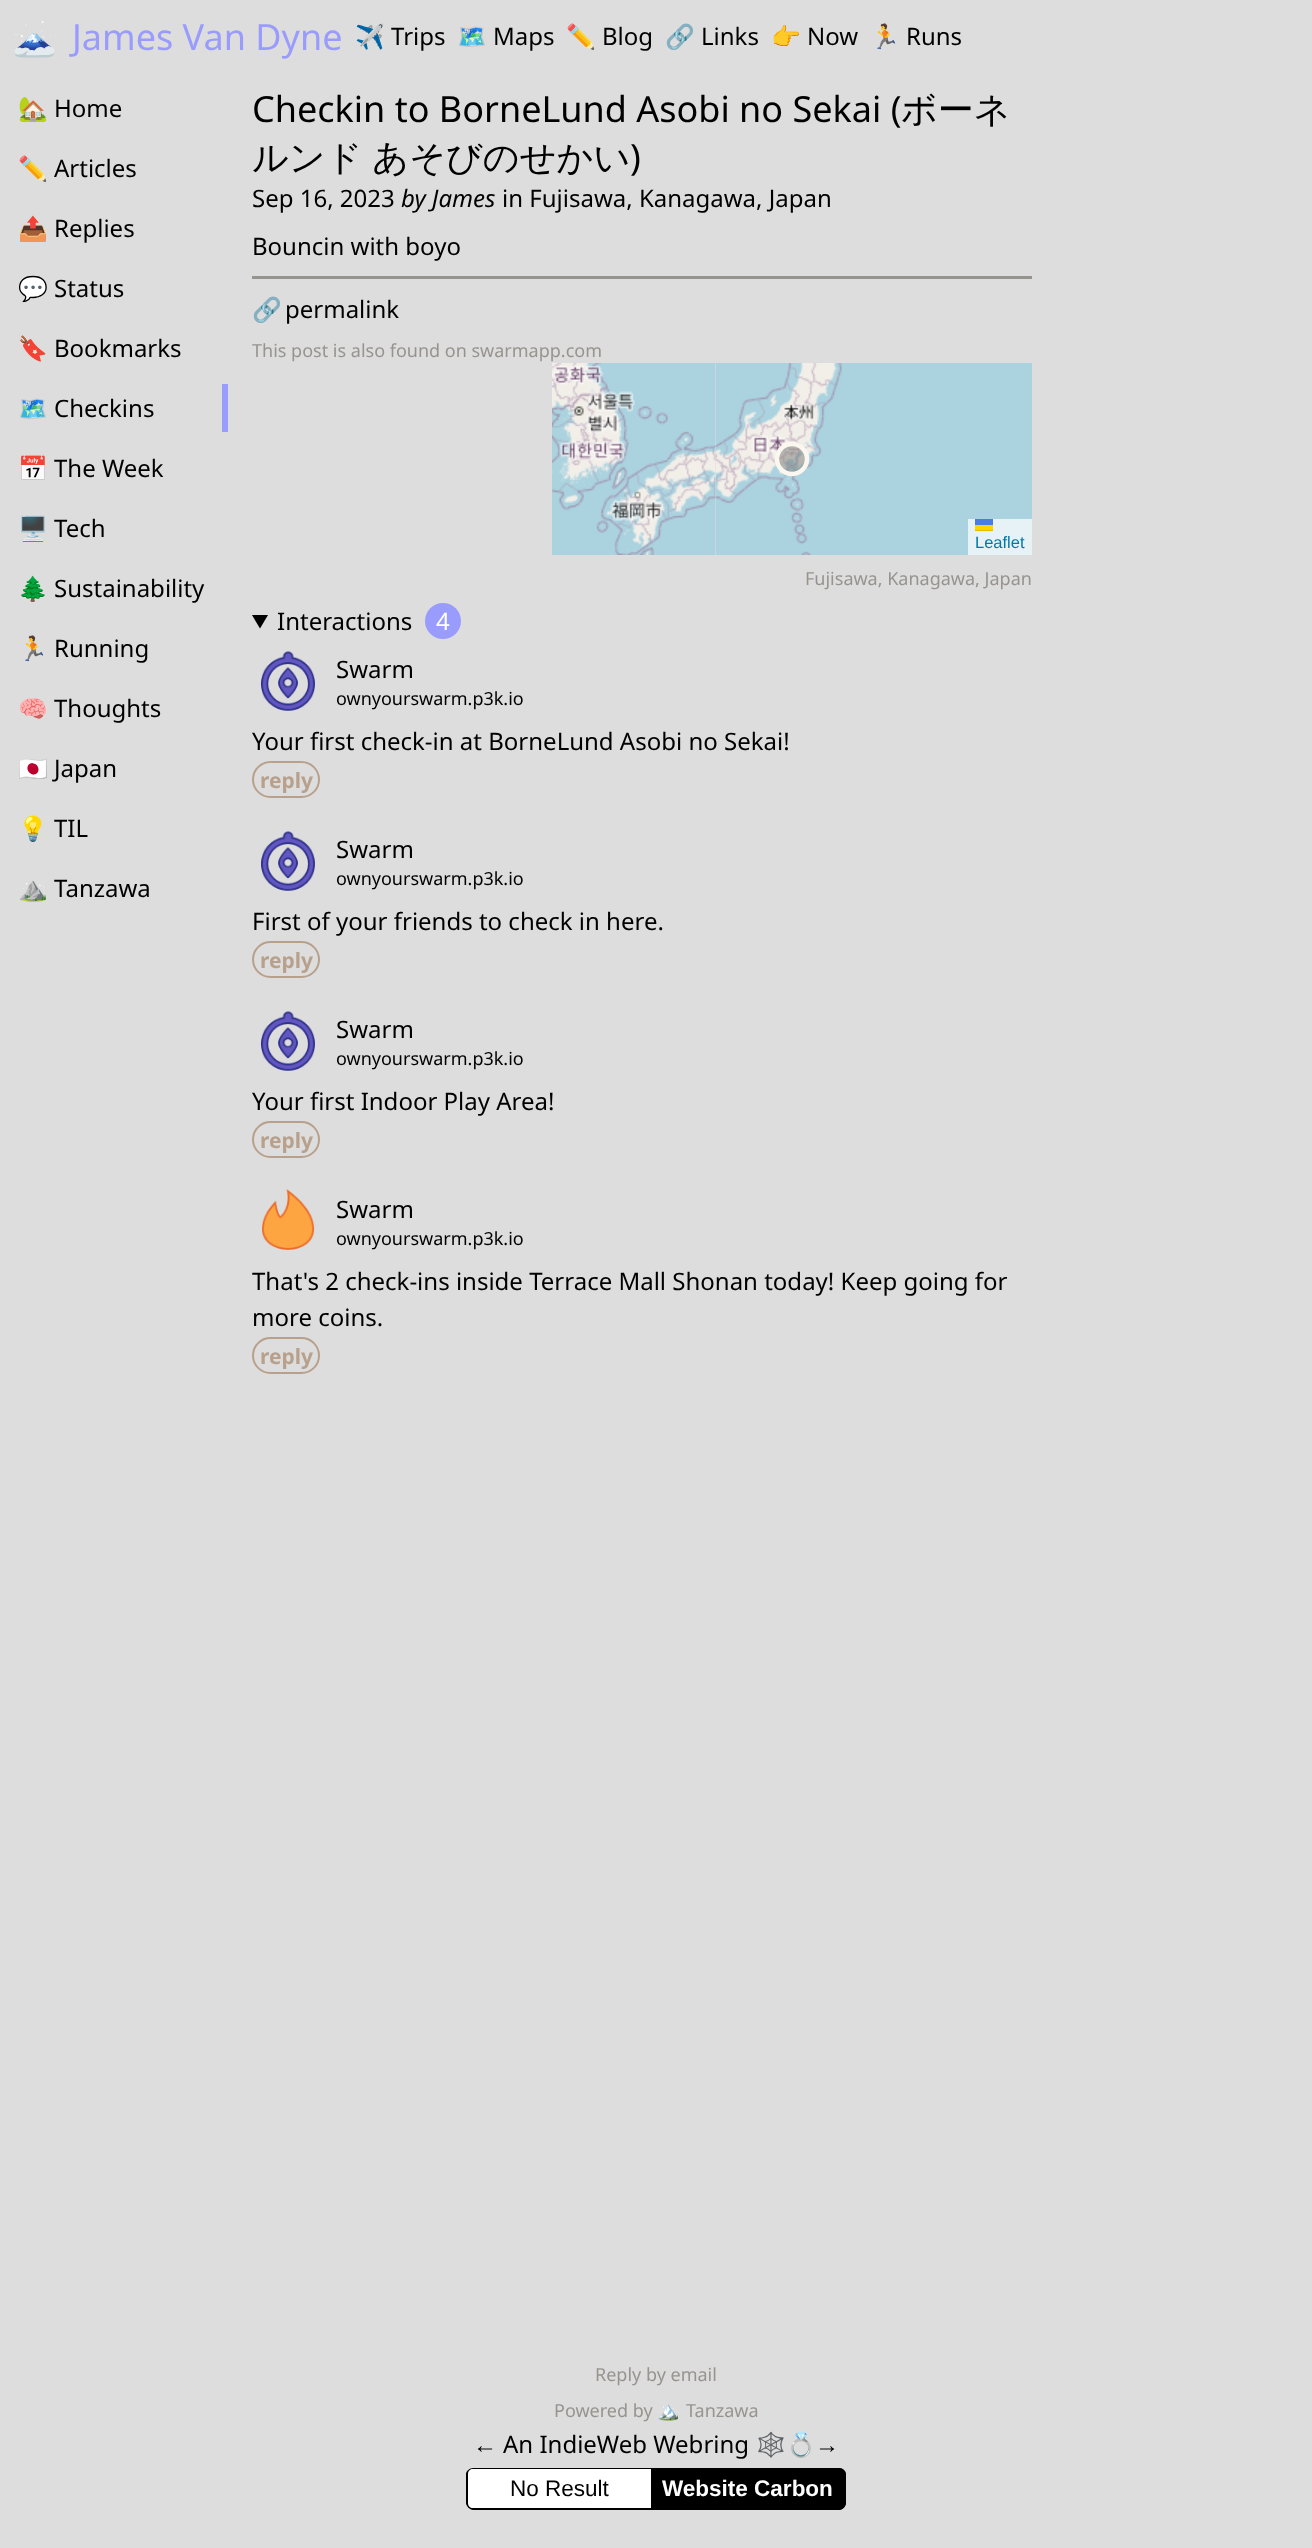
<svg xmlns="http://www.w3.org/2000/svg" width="1312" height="2548">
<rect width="100%" height="100%" fill="#ddd"/>
<text x="12" y="50" style="font-family:Noto Color Emoji;font-size:36px;fill:#999cfc">🗻</text>
<text x="72" y="50" style="font-family:Noto Sans;font-size:36px;fill:#999cfc">James Van Dyne</text>
<text x="355" y="45" style="font-family:Noto Color Emoji;font-size:24px;fill:#000">✈️</text>
<text x="391" y="45" style="font-family:Noto Sans;font-size:24px;fill:#000">Trips</text>
<text x="457" y="45" style="font-family:Noto Color Emoji;font-size:24px;fill:#000">🗺️</text>
<text x="493" y="45" style="font-family:Noto Sans;font-size:24px;fill:#000">Maps</text>
<text x="566" y="45" style="font-family:Noto Color Emoji;font-size:24px;fill:#000">✏️️</text>
<text x="602" y="45" style="font-family:Noto Sans;font-size:24px;fill:#000">Blog</text>
<text x="665" y="45" style="font-family:Noto Color Emoji;font-size:24px;fill:#000">🔗️️</text>
<text x="701" y="45" style="font-family:Noto Sans;font-size:24px;fill:#000">Links</text>
<text x="771" y="45" style="font-family:Noto Color Emoji;font-size:24px;fill:#000">👉</text>
<text x="807" y="45" style="font-family:Noto Sans;font-size:24px;fill:#000">Now</text>
<text x="870" y="45" style="font-family:Noto Color Emoji;font-size:24px;fill:#000">🏃</text>
<text x="906" y="45" style="font-family:Noto Sans;font-size:24px;fill:#000">Runs</text>
<text x="18" y="117" style="font-family:Noto Color Emoji;font-size:24px;fill:#000">🏡</text>
<text x="54" y="117" style="font-family:Noto Sans;font-size:24px;fill:#000">Home</text>
<text x="18" y="177" style="font-family:Noto Color Emoji;font-size:24px;fill:#000">✏️</text>
<text x="54" y="177" style="font-family:Noto Sans;font-size:24px;fill:#000">Articles</text>
<text x="18" y="237" style="font-family:Noto Color Emoji;font-size:24px;fill:#000">📤️</text>
<text x="54" y="237" style="font-family:Noto Sans;font-size:24px;fill:#000">Replies</text>
<text x="18" y="297" style="font-family:Noto Color Emoji;font-size:24px;fill:#000">💬</text>
<text x="54" y="297" style="font-family:Noto Sans;font-size:24px;fill:#000">Status</text>
<text x="18" y="357" style="font-family:Noto Color Emoji;font-size:24px;fill:#000">🔖️️</text>
<text x="54" y="357" style="font-family:Noto Sans;font-size:24px;fill:#000">Bookmarks</text>
<rect x="222" y="384" width="6" height="48" fill="#999cfc"/>
<text x="18" y="417" style="font-family:Noto Color Emoji;font-size:24px;fill:#000">🗺</text>
<text x="54" y="417" style="font-family:Noto Sans;font-size:24px;fill:#000">Checkins</text>
<text x="18" y="477" style="font-family:Noto Color Emoji;font-size:24px;fill:#000">📅</text>
<text x="54" y="477" style="font-family:Noto Sans;font-size:24px;fill:#000">The Week</text>
<text x="18" y="537" style="font-family:Noto Color Emoji;font-size:24px;fill:#000">🖥</text>
<text x="54" y="537" style="font-family:Noto Sans;font-size:24px;fill:#000">Tech</text>
<text x="18" y="597" style="font-family:Noto Color Emoji;font-size:24px;fill:#000">🌲</text>
<text x="54" y="597" style="font-family:Noto Sans;font-size:24px;fill:#000">Sustainability</text>
<text x="18" y="657" style="font-family:Noto Color Emoji;font-size:24px;fill:#000">🏃</text>
<text x="54" y="657" style="font-family:Noto Sans;font-size:24px;fill:#000">Running</text>
<text x="18" y="717" style="font-family:Noto Color Emoji;font-size:24px;fill:#000">🧠</text>
<text x="54" y="717" style="font-family:Noto Sans;font-size:24px;fill:#000">Thoughts</text>
<text x="18" y="777" style="font-family:Noto Color Emoji;font-size:24px;fill:#000">🇯🇵</text>
<text x="54" y="777" style="font-family:Noto Sans;font-size:24px;fill:#000">Japan</text>
<text x="18" y="837" style="font-family:Noto Color Emoji;font-size:24px;fill:#000">💡</text>
<text x="54" y="837" style="font-family:Noto Sans;font-size:24px;fill:#000">TIL</text>
<text x="18" y="897" style="font-family:Noto Color Emoji;font-size:24px;fill:#000">⛰</text>
<text x="54" y="897" style="font-family:Noto Sans;font-size:24px;fill:#000">Tanzawa</text>
<text x="252" y="122" style="font-family:Noto Sans;font-size:36px;fill:#000">Checkin to BorneLund Asobi no Sekai (</text>
<text x="901" y="122" style="font-family:WenQuanYi Zen Hei;font-size:36px;font-weight:500;fill:#000">ボーネ</text>
<text x="252" y="170" word-spacing="-1" style="font-family:WenQuanYi Zen Hei;font-size:36px;font-weight:500;fill:#000">ルンド あそびのせかい</text>
<text x="630" y="170" style="font-family:Noto Sans;font-size:36px;fill:#000">)</text>
<text x="252" y="207" style="font-family:Noto Sans;font-size:24px;fill:#000">Sep 16, 2023</text>
<text x="401" y="207" style="font-family:Noto Sans;font-size:24px;font-style:italic;fill:#000">by James</text>
<text x="502" y="207" style="font-family:Noto Sans;font-size:24px;fill:#000">in Fujisawa, Kanagawa, Japan</text>
<text x="252" y="255" style="font-family:Noto Sans;font-size:24px;fill:#000">Bouncin with boyo</text>
<rect x="252" y="276" width="780" height="3" fill="#97948f"/>
<text x="252" y="318" style="font-family:Noto Color Emoji;font-size:24px;fill:#000">🔗</text>
<text x="285" y="318" style="font-family:Noto Sans;font-size:24px;fill:#000">permalink</text>
<text x="252" y="357" style="font-family:Noto Sans;font-size:18px;fill:#97948f">This post is also found on swarmapp.com</text>
<image x="552" y="363" width="164" height="192" href="media/1.png"/>
<image x="716" y="363" width="316" height="192" href="media/2.png"/>
<image x="774" y="442" width="36" height="35" href="media/3.png"/>
<rect x="968" y="519" width="64" height="36" fill="#e6f2f5"/>
<rect x="975" y="519" width="18" height="6" fill="#4c7be1"/>
<rect x="975" y="525" width="18" height="5" fill="#ffd500"/>
<rect x="975" y="530" width="18" height="1" fill="#e0bc00"/>
<text x="975" y="548" style="font-family:Liberation Sans;font-size:16.5px;fill:#0078a8">Leaflet</text>
<text x="805" y="585" style="font-family:Noto Sans;font-size:18px;fill:#97948f">Fujisawa, Kanagawa, Japan</text>
<path d="M252 615h16l-8 13.5z" fill="#000"/>
<text x="277" y="630" style="font-family:Noto Sans;font-size:24px;fill:#000">Interactions</text>
<circle cx="443" cy="621" r="18" fill="#999cfc"/>
<text x="436" y="630" style="font-family:Noto Sans;font-size:24px;fill:#fff">4</text>
<image x="260" y="651" width="55" height="60" href="media/4.png"/>
<text x="336" y="678" style="font-family:Noto Sans;font-size:24px;fill:#000">Swarm</text>
<text x="336" y="705" style="font-family:Noto Sans;font-size:18px;fill:#000">ownyourswarm.p3k.io</text>
<text x="252" y="750" style="font-family:Noto Sans;font-size:24px;fill:#000">Your first check-in at BorneLund Asobi no Sekai!</text>
<rect x="253" y="762" width="66" height="35" rx="17.5" fill="none" stroke="#b8a18c" stroke-width="2"/>
<text x="260" y="788" style="font-family:Noto Sans;font-size:21px;font-weight:bold;fill:#b8a18c">reply</text>
<image x="260" y="831" width="55" height="60" href="media/5.png"/>
<text x="336" y="858" style="font-family:Noto Sans;font-size:24px;fill:#000">Swarm</text>
<text x="336" y="885" style="font-family:Noto Sans;font-size:18px;fill:#000">ownyourswarm.p3k.io</text>
<text x="252" y="930" style="font-family:Noto Sans;font-size:24px;fill:#000">First of your friends to check in here.</text>
<rect x="253" y="942" width="66" height="35" rx="17.5" fill="none" stroke="#b8a18c" stroke-width="2"/>
<text x="260" y="968" style="font-family:Noto Sans;font-size:21px;font-weight:bold;fill:#b8a18c">reply</text>
<image x="260" y="1011" width="55" height="60" href="media/6.png"/>
<text x="336" y="1038" style="font-family:Noto Sans;font-size:24px;fill:#000">Swarm</text>
<text x="336" y="1065" style="font-family:Noto Sans;font-size:18px;fill:#000">ownyourswarm.p3k.io</text>
<text x="252" y="1110" style="font-family:Noto Sans;font-size:24px;fill:#000">Your first Indoor Play Area!</text>
<rect x="253" y="1122" width="66" height="35" rx="17.5" fill="none" stroke="#b8a18c" stroke-width="2"/>
<text x="260" y="1148" style="font-family:Noto Sans;font-size:21px;font-weight:bold;fill:#b8a18c">reply</text>
<image x="262" y="1189" width="53" height="61" href="media/7.png"/>
<text x="336" y="1218" style="font-family:Noto Sans;font-size:24px;fill:#000">Swarm</text>
<text x="336" y="1245" style="font-family:Noto Sans;font-size:18px;fill:#000">ownyourswarm.p3k.io</text>
<text x="252" y="1290" style="font-family:Noto Sans;font-size:24px;fill:#000">That's 2 check-ins inside Terrace Mall Shonan today! Keep going for</text>
<text x="252" y="1326" style="font-family:Noto Sans;font-size:24px;fill:#000">more coins.</text>
<rect x="253" y="1338" width="66" height="35" rx="17.5" fill="none" stroke="#b8a18c" stroke-width="2"/>
<text x="260" y="1364" style="font-family:Noto Sans;font-size:21px;font-weight:bold;fill:#b8a18c">reply</text>
<text x="595" y="2381" style="font-family:Noto Sans;font-size:18px;fill:#97948f">Reply by email</text>
<text x="554" y="2417" style="font-family:Noto Sans;font-size:18px;fill:#97948f">Powered by</text>
<text x="657" y="2417" style="font-family:Noto Color Emoji;font-size:18px;fill:#97948f">🏔</text>
<text x="686" y="2417" style="font-family:Noto Sans;font-size:18px;fill:#97948f">Tanzawa</text>
<text x="473" y="2453" style="font-family:Liberation Sans;font-size:24px;fill:#000">←</text>
<text x="503" y="2453" style="font-family:Noto Sans;font-size:24px;fill:#000">An IndieWeb Webring</text>
<text x="756" y="2453" style="font-family:Noto Color Emoji;font-size:24px;fill:#000">🕸💍</text>
<text x="815" y="2453" style="font-family:Liberation Sans;font-size:24px;fill:#000">→</text>
<path d="M475 2468h176v42h-176c-4.5 0-8-3.5-8-8v-26c0-4.5 3.5-8 8-8z" fill="#fff"/>
<path d="M473 2468h178v42h-178c-3 0-7-4-7-7v-29c0-3 4-6 7-6zm0 1h178v39h-178c-3 0-5-2-5-5v-29c0-3 2-5 5-5z" fill="#000" fill-rule="evenodd"/>
<text x="510" y="2496" style="font-family:Liberation Sans;font-size:22.5px;fill:#000">No Result</text>
<path d="M651 2468h187c4.5 0 8 3.5 8 8v26c0 4.5-3.5 8-8 8h-187z" fill="#000"/>
<path d="M651 2468h188c4 0 7 3 7 6v29c0 3-3 7-7 7h-188zm0 1h188c3 0 5 2 5 5v29c0 3-2 5-5 5h-188z" fill="#000" fill-rule="evenodd"/>
<text x="662" y="2496" style="font-family:Liberation Sans;font-size:22.5px;font-weight:bold;fill:#fff">Website Carbon</text>
</svg>
